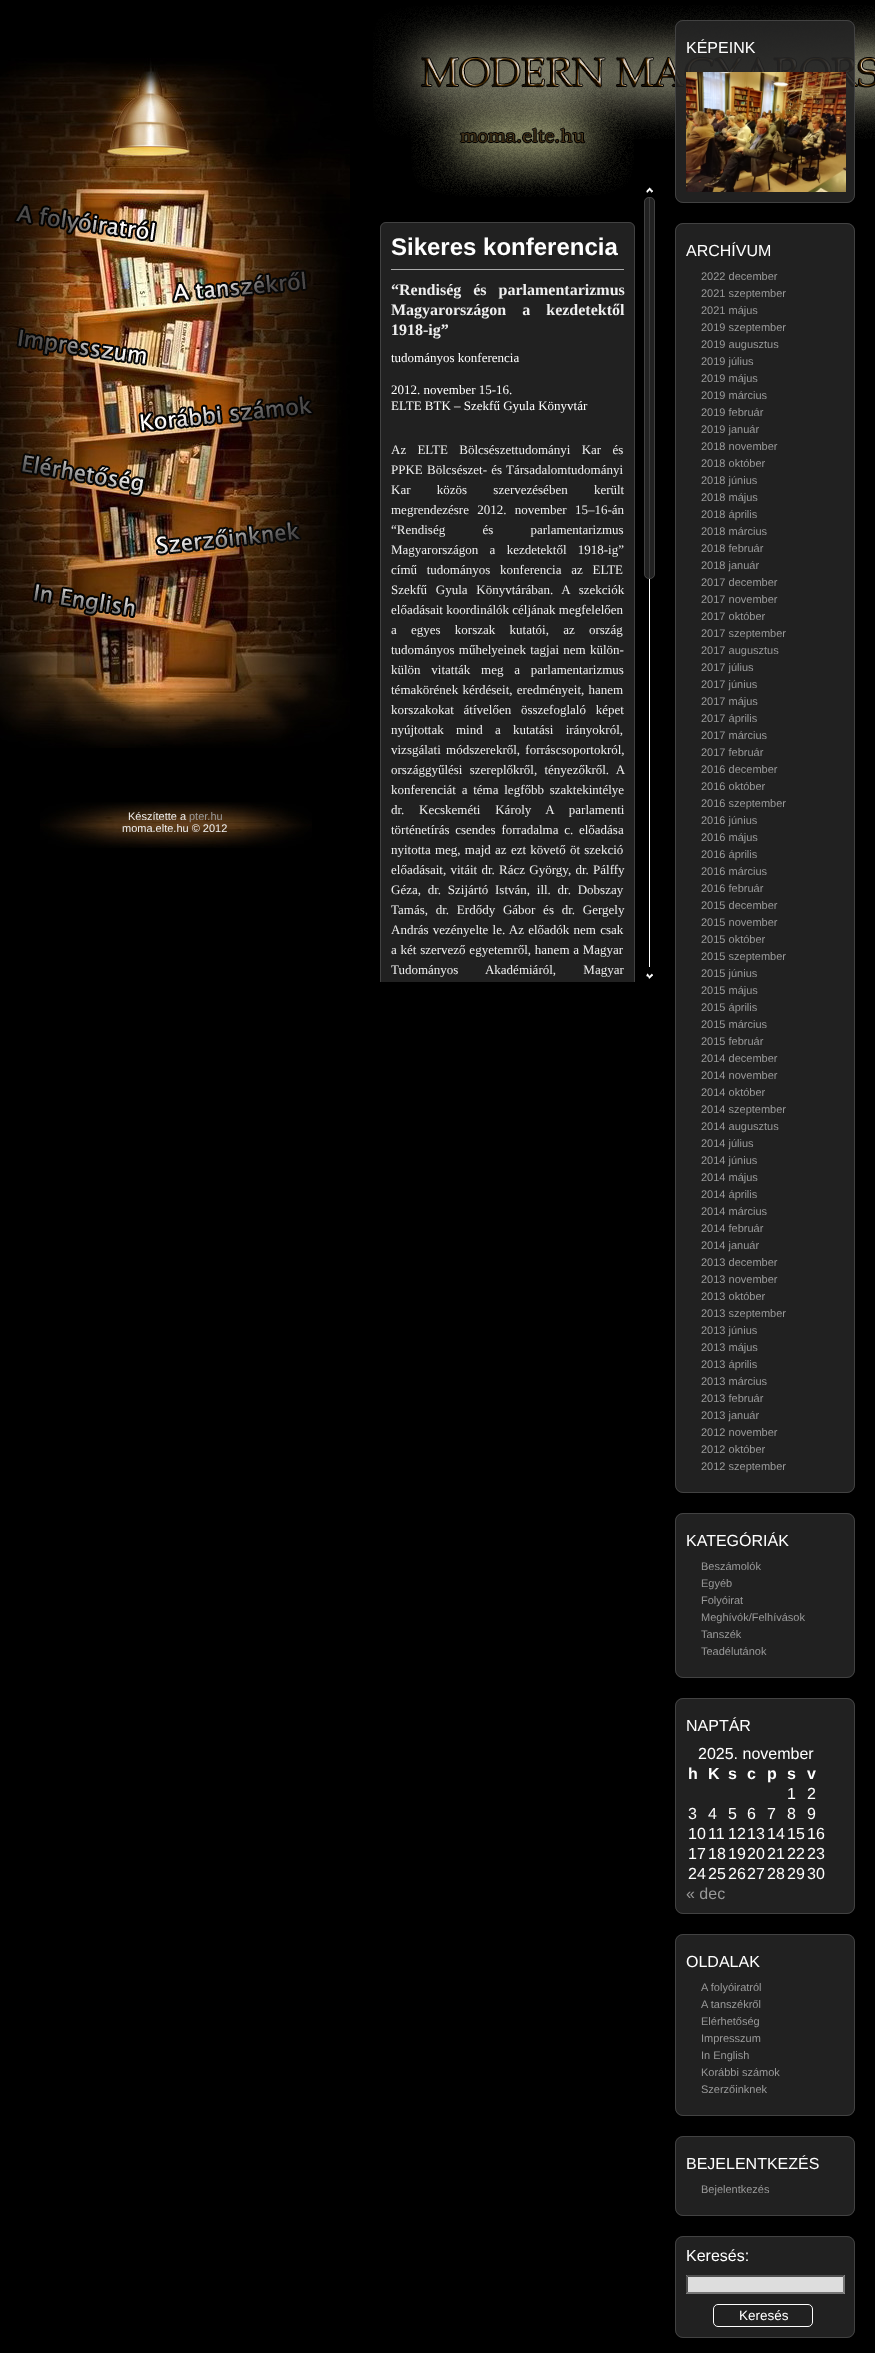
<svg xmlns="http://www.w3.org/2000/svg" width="875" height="2353">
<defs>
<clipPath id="clip1"><rect x="370" y="182" width="285" height="800"/></clipPath>
</defs>
<rect width="100%" height="100%" fill="#000"/>
<image x="0" y="58" width="350" height="690" href="media/1.png"/>
<image x="14" y="203" width="143" height="39" href="media/2.png"/>
<image x="172" y="269" width="136" height="34" href="media/3.png"/>
<image x="16" y="327" width="132" height="39" href="media/4.png"/>
<image x="138" y="394" width="176" height="39" href="media/5.png"/>
<image x="20" y="453" width="125" height="44" href="media/6.png"/>
<image x="155" y="520" width="147" height="36" href="media/7.png"/>
<image x="32" y="582" width="105" height="36" href="media/8.png"/>
<image x="40" y="802" width="272" height="46" href="media/9.png"/>
<text x="128" y="820" style="font-family:Liberation Sans;font-size:11px;fill:#eee">Készítette a</text>
<text x="189" y="820" style="font-family:Liberation Sans;font-size:11px;fill:#999">pter.hu</text>
<text x="122" y="832" style="font-family:Liberation Sans;font-size:11px;fill:#eee">moma.elte.hu © 2012</text>
<image x="411" y="77" width="223" height="120" href="media/11.png"/>
<image x="373" y="5" width="502" height="134" href="media/10.png"/>
<image x="380" y="222" width="255" height="760" href="media/12.png"/>
<g clip-path="url(#clip1)">
<rect x="380.5" y="222.5" width="254" height="1514" rx="5.5" fill="none" stroke="#424242"/>
</g>
<rect x="391" y="269" width="233" height="1" fill="#aaa"/>
<text x="391" y="255" style="font-family:Liberation Sans;font-size:24px;font-weight:bold;fill:#fff">Sikeres konferencia</text>
<text x="391" y="295" word-spacing="8" style="font-family:Liberation Serif;font-size:16px;font-weight:bold;fill:#eee">“Rendiség és parlamentarizmus</text>
<text x="391" y="315" word-spacing="12" style="font-family:Liberation Serif;font-size:16px;font-weight:bold;fill:#eee">Magyarországon a kezdetektől</text>
<text x="391" y="335" style="font-family:Liberation Serif;font-size:16px;font-weight:bold;fill:#eee">1918-ig”</text>
<text x="391" y="362" style="font-family:Liberation Serif;font-size:13px;fill:#fff">tudományos konferencia</text>
<text x="391" y="394" style="font-family:Liberation Serif;font-size:13px;fill:#fff">2012. november 15-16.</text>
<text x="391" y="410" style="font-family:Liberation Serif;font-size:13px;fill:#fff">ELTE BTK – Szekfű Gyula Könyvtár</text>
<text x="391" y="454" word-spacing="8" style="font-family:Liberation Serif;font-size:13px;fill:#eee">Az ELTE Bölcsészettudományi Kar és</text>
<text x="391" y="474" word-spacing="1" style="font-family:Liberation Serif;font-size:13px;fill:#eee">PPKE Bölcsészet- és Társadalomtudományi</text>
<text x="391" y="494" word-spacing="23" style="font-family:Liberation Serif;font-size:13px;fill:#eee">Kar közös szervezésében került</text>
<text x="391" y="514" word-spacing="5" style="font-family:Liberation Serif;font-size:13px;fill:#eee">megrendezésre 2012. november 15–16-án</text>
<text x="391" y="534" word-spacing="34" style="font-family:Liberation Serif;font-size:13px;fill:#eee">“Rendiség és parlamentarizmus</text>
<text x="391" y="554" word-spacing="8" style="font-family:Liberation Serif;font-size:13px;fill:#eee">Magyarországon a kezdetektől 1918-ig”</text>
<text x="391" y="574" word-spacing="6.5" style="font-family:Liberation Serif;font-size:13px;fill:#eee">című tudományos konferencia az ELTE</text>
<text x="391" y="594" word-spacing="5.5" style="font-family:Liberation Serif;font-size:13px;fill:#eee">Szekfű Gyula Könyvtárában. A szekciók</text>
<text x="391" y="614" style="font-family:Liberation Serif;font-size:13px;fill:#eee">előadásait koordinálók céljának megfelelően</text>
<text x="391" y="634" word-spacing="11" style="font-family:Liberation Serif;font-size:13px;fill:#eee">a egyes korszak kutatói, az ország</text>
<text x="391" y="654" word-spacing="1" style="font-family:Liberation Serif;font-size:13px;fill:#eee">tudományos műhelyeinek tagjai nem külön-</text>
<text x="391" y="674" word-spacing="7.5" style="font-family:Liberation Serif;font-size:13px;fill:#eee">külön vitatták meg a parlamentarizmus</text>
<text x="391" y="694" word-spacing="1" style="font-family:Liberation Serif;font-size:13px;fill:#eee">témakörének kérdéseit, eredményeit, hanem</text>
<text x="391" y="714" word-spacing="6.5" style="font-family:Liberation Serif;font-size:13px;fill:#eee">korszakokat átívelően összefoglaló képet</text>
<text x="391" y="734" word-spacing="9" style="font-family:Liberation Serif;font-size:13px;fill:#eee">nyújtottak mind a kutatási irányokról,</text>
<text x="391" y="754" word-spacing="2" style="font-family:Liberation Serif;font-size:13px;fill:#eee">vizsgálati módszerekről, forráscsoportokról,</text>
<text x="391" y="774" word-spacing="4" style="font-family:Liberation Serif;font-size:13px;fill:#eee">országgyűlési szereplőkről, tényezőkről. A</text>
<text x="391" y="794" word-spacing="2.5" style="font-family:Liberation Serif;font-size:13px;fill:#eee">konferenciát a téma legfőbb szaktekintélye</text>
<text x="391" y="814" word-spacing="11.5" style="font-family:Liberation Serif;font-size:13px;fill:#eee">dr. Kecskeméti Károly A parlamenti</text>
<text x="391" y="834" word-spacing="2.5" style="font-family:Liberation Serif;font-size:13px;fill:#eee">történetírás csendes forradalma c. előadása</text>
<text x="391" y="854" word-spacing="1" style="font-family:Liberation Serif;font-size:13px;fill:#eee">nyitotta meg, majd az ezt követő öt szekció</text>
<text x="391" y="874" word-spacing="1" style="font-family:Liberation Serif;font-size:13px;fill:#eee">előadásait, vitáit dr. Rácz György, dr. Pálffy</text>
<text x="391" y="894" word-spacing="3.5" style="font-family:Liberation Serif;font-size:13px;fill:#eee">Géza, dr. Szijártó István, ill. dr. Dobszay</text>
<text x="391" y="914" word-spacing="4.5" style="font-family:Liberation Serif;font-size:13px;fill:#eee">Tamás, dr. Erdődy Gábor és dr. Gergely</text>
<text x="391" y="934" word-spacing="1" style="font-family:Liberation Serif;font-size:13px;fill:#eee">András vezényelte le. Az előadók nem csak</text>
<text x="391" y="954" word-spacing="0.5" style="font-family:Liberation Serif;font-size:13px;fill:#eee">a két szervező egyetemről, hanem a Magyar</text>
<text x="391" y="974" word-spacing="24" style="font-family:Liberation Serif;font-size:13px;fill:#eee">Tudományos Akadémiáról, Magyar</text>
<image x="646" y="187" width="7" height="6" href="media/13.png"/>
<rect x="649" y="197" width="1" height="770" fill="#fff"/>
<image x="644" y="197" width="11" height="382" href="media/14.png"/>
<rect x="644.5" y="197.5" width="10" height="381" rx="4.5" fill="none" stroke="#424242"/>
<image x="646" y="973" width="7" height="6" href="media/15.png"/>
<image x="675" y="20" width="180" height="183" href="media/16.png"/>
<rect x="675.5" y="20.5" width="179" height="182" rx="7.5" fill="none" stroke="#424242"/>
<text x="686" y="53" style="font-family:Liberation Sans;font-size:16px;fill:#fff">KÉPEINK</text>
<image x="686" y="72" width="160" height="120" href="media/17.png"/>
<image x="675" y="223" width="180" height="1270" href="media/18.png"/>
<rect x="675.5" y="223.5" width="179" height="1269" rx="7.5" fill="none" stroke="#424242"/>
<text x="686" y="256" style="font-family:Liberation Sans;font-size:16px;fill:#fff">ARCHÍVUM</text>
<text x="701" y="280" style="font-family:Liberation Sans;font-size:11px;fill:#999">2022 december</text>
<text x="701" y="297" style="font-family:Liberation Sans;font-size:11px;fill:#999">2021 szeptember</text>
<text x="701" y="314" style="font-family:Liberation Sans;font-size:11px;fill:#999">2021 május</text>
<text x="701" y="331" style="font-family:Liberation Sans;font-size:11px;fill:#999">2019 szeptember</text>
<text x="701" y="348" style="font-family:Liberation Sans;font-size:11px;fill:#999">2019 augusztus</text>
<text x="701" y="365" style="font-family:Liberation Sans;font-size:11px;fill:#999">2019 július</text>
<text x="701" y="382" style="font-family:Liberation Sans;font-size:11px;fill:#999">2019 május</text>
<text x="701" y="399" style="font-family:Liberation Sans;font-size:11px;fill:#999">2019 március</text>
<text x="701" y="416" style="font-family:Liberation Sans;font-size:11px;fill:#999">2019 február</text>
<text x="701" y="433" style="font-family:Liberation Sans;font-size:11px;fill:#999">2019 január</text>
<text x="701" y="450" style="font-family:Liberation Sans;font-size:11px;fill:#999">2018 november</text>
<text x="701" y="467" style="font-family:Liberation Sans;font-size:11px;fill:#999">2018 október</text>
<text x="701" y="484" style="font-family:Liberation Sans;font-size:11px;fill:#999">2018 június</text>
<text x="701" y="501" style="font-family:Liberation Sans;font-size:11px;fill:#999">2018 május</text>
<text x="701" y="518" style="font-family:Liberation Sans;font-size:11px;fill:#999">2018 április</text>
<text x="701" y="535" style="font-family:Liberation Sans;font-size:11px;fill:#999">2018 március</text>
<text x="701" y="552" style="font-family:Liberation Sans;font-size:11px;fill:#999">2018 február</text>
<text x="701" y="569" style="font-family:Liberation Sans;font-size:11px;fill:#999">2018 január</text>
<text x="701" y="586" style="font-family:Liberation Sans;font-size:11px;fill:#999">2017 december</text>
<text x="701" y="603" style="font-family:Liberation Sans;font-size:11px;fill:#999">2017 november</text>
<text x="701" y="620" style="font-family:Liberation Sans;font-size:11px;fill:#999">2017 október</text>
<text x="701" y="637" style="font-family:Liberation Sans;font-size:11px;fill:#999">2017 szeptember</text>
<text x="701" y="654" style="font-family:Liberation Sans;font-size:11px;fill:#999">2017 augusztus</text>
<text x="701" y="671" style="font-family:Liberation Sans;font-size:11px;fill:#999">2017 július</text>
<text x="701" y="688" style="font-family:Liberation Sans;font-size:11px;fill:#999">2017 június</text>
<text x="701" y="705" style="font-family:Liberation Sans;font-size:11px;fill:#999">2017 május</text>
<text x="701" y="722" style="font-family:Liberation Sans;font-size:11px;fill:#999">2017 április</text>
<text x="701" y="739" style="font-family:Liberation Sans;font-size:11px;fill:#999">2017 március</text>
<text x="701" y="756" style="font-family:Liberation Sans;font-size:11px;fill:#999">2017 február</text>
<text x="701" y="773" style="font-family:Liberation Sans;font-size:11px;fill:#999">2016 december</text>
<text x="701" y="790" style="font-family:Liberation Sans;font-size:11px;fill:#999">2016 október</text>
<text x="701" y="807" style="font-family:Liberation Sans;font-size:11px;fill:#999">2016 szeptember</text>
<text x="701" y="824" style="font-family:Liberation Sans;font-size:11px;fill:#999">2016 június</text>
<text x="701" y="841" style="font-family:Liberation Sans;font-size:11px;fill:#999">2016 május</text>
<text x="701" y="858" style="font-family:Liberation Sans;font-size:11px;fill:#999">2016 április</text>
<text x="701" y="875" style="font-family:Liberation Sans;font-size:11px;fill:#999">2016 március</text>
<text x="701" y="892" style="font-family:Liberation Sans;font-size:11px;fill:#999">2016 február</text>
<text x="701" y="909" style="font-family:Liberation Sans;font-size:11px;fill:#999">2015 december</text>
<text x="701" y="926" style="font-family:Liberation Sans;font-size:11px;fill:#999">2015 november</text>
<text x="701" y="943" style="font-family:Liberation Sans;font-size:11px;fill:#999">2015 október</text>
<text x="701" y="960" style="font-family:Liberation Sans;font-size:11px;fill:#999">2015 szeptember</text>
<text x="701" y="977" style="font-family:Liberation Sans;font-size:11px;fill:#999">2015 június</text>
<text x="701" y="994" style="font-family:Liberation Sans;font-size:11px;fill:#999">2015 május</text>
<text x="701" y="1011" style="font-family:Liberation Sans;font-size:11px;fill:#999">2015 április</text>
<text x="701" y="1028" style="font-family:Liberation Sans;font-size:11px;fill:#999">2015 március</text>
<text x="701" y="1045" style="font-family:Liberation Sans;font-size:11px;fill:#999">2015 február</text>
<text x="701" y="1062" style="font-family:Liberation Sans;font-size:11px;fill:#999">2014 december</text>
<text x="701" y="1079" style="font-family:Liberation Sans;font-size:11px;fill:#999">2014 november</text>
<text x="701" y="1096" style="font-family:Liberation Sans;font-size:11px;fill:#999">2014 október</text>
<text x="701" y="1113" style="font-family:Liberation Sans;font-size:11px;fill:#999">2014 szeptember</text>
<text x="701" y="1130" style="font-family:Liberation Sans;font-size:11px;fill:#999">2014 augusztus</text>
<text x="701" y="1147" style="font-family:Liberation Sans;font-size:11px;fill:#999">2014 július</text>
<text x="701" y="1164" style="font-family:Liberation Sans;font-size:11px;fill:#999">2014 június</text>
<text x="701" y="1181" style="font-family:Liberation Sans;font-size:11px;fill:#999">2014 május</text>
<text x="701" y="1198" style="font-family:Liberation Sans;font-size:11px;fill:#999">2014 április</text>
<text x="701" y="1215" style="font-family:Liberation Sans;font-size:11px;fill:#999">2014 március</text>
<text x="701" y="1232" style="font-family:Liberation Sans;font-size:11px;fill:#999">2014 február</text>
<text x="701" y="1249" style="font-family:Liberation Sans;font-size:11px;fill:#999">2014 január</text>
<text x="701" y="1266" style="font-family:Liberation Sans;font-size:11px;fill:#999">2013 december</text>
<text x="701" y="1283" style="font-family:Liberation Sans;font-size:11px;fill:#999">2013 november</text>
<text x="701" y="1300" style="font-family:Liberation Sans;font-size:11px;fill:#999">2013 október</text>
<text x="701" y="1317" style="font-family:Liberation Sans;font-size:11px;fill:#999">2013 szeptember</text>
<text x="701" y="1334" style="font-family:Liberation Sans;font-size:11px;fill:#999">2013 június</text>
<text x="701" y="1351" style="font-family:Liberation Sans;font-size:11px;fill:#999">2013 május</text>
<text x="701" y="1368" style="font-family:Liberation Sans;font-size:11px;fill:#999">2013 április</text>
<text x="701" y="1385" style="font-family:Liberation Sans;font-size:11px;fill:#999">2013 március</text>
<text x="701" y="1402" style="font-family:Liberation Sans;font-size:11px;fill:#999">2013 február</text>
<text x="701" y="1419" style="font-family:Liberation Sans;font-size:11px;fill:#999">2013 január</text>
<text x="701" y="1436" style="font-family:Liberation Sans;font-size:11px;fill:#999">2012 november</text>
<text x="701" y="1453" style="font-family:Liberation Sans;font-size:11px;fill:#999">2012 október</text>
<text x="701" y="1470" style="font-family:Liberation Sans;font-size:11px;fill:#999">2012 szeptember</text>
<image x="675" y="1513" width="180" height="165" href="media/19.png"/>
<rect x="675.5" y="1513.5" width="179" height="164" rx="7.5" fill="none" stroke="#424242"/>
<text x="686" y="1546" style="font-family:Liberation Sans;font-size:16px;fill:#fff">KATEGÓRIÁK</text>
<text x="701" y="1570" style="font-family:Liberation Sans;font-size:11px;fill:#999">Beszámolók</text>
<text x="701" y="1587" style="font-family:Liberation Sans;font-size:11px;fill:#999">Egyéb</text>
<text x="701" y="1604" style="font-family:Liberation Sans;font-size:11px;fill:#999">Folyóirat</text>
<text x="701" y="1621" style="font-family:Liberation Sans;font-size:11px;fill:#999">Meghívók/Felhívások</text>
<text x="701" y="1638" style="font-family:Liberation Sans;font-size:11px;fill:#999">Tanszék</text>
<text x="701" y="1655" style="font-family:Liberation Sans;font-size:11px;fill:#999">Teadélutánok</text>
<image x="675" y="1698" width="180" height="216" href="media/20.png"/>
<rect x="675.5" y="1698.5" width="179" height="215" rx="7.5" fill="none" stroke="#424242"/>
<text x="686" y="1731" style="font-family:Liberation Sans;font-size:16px;fill:#fff">NAPTÁR</text>
<text x="698" y="1759" style="font-family:Liberation Sans;font-size:16px;fill:#fff">2025. november</text>
<text x="688" y="1779" style="font-family:Liberation Sans;font-size:16px;font-weight:bold;fill:#fff">h</text>
<text x="708" y="1779" style="font-family:Liberation Sans;font-size:16px;font-weight:bold;fill:#fff">K</text>
<text x="728" y="1779" style="font-family:Liberation Sans;font-size:16px;font-weight:bold;fill:#fff">s</text>
<text x="747" y="1779" style="font-family:Liberation Sans;font-size:16px;font-weight:bold;fill:#fff">c</text>
<text x="767" y="1779" style="font-family:Liberation Sans;font-size:16px;font-weight:bold;fill:#fff">p</text>
<text x="787" y="1779" style="font-family:Liberation Sans;font-size:16px;font-weight:bold;fill:#fff">s</text>
<text x="807" y="1779" style="font-family:Liberation Sans;font-size:16px;font-weight:bold;fill:#fff">v</text>
<text x="787" y="1799" style="font-family:Liberation Sans;font-size:16px;fill:#fff">1</text>
<text x="807" y="1799" style="font-family:Liberation Sans;font-size:16px;fill:#fff">2</text>
<text x="688" y="1819" style="font-family:Liberation Sans;font-size:16px;fill:#fff">3</text>
<text x="708" y="1819" style="font-family:Liberation Sans;font-size:16px;fill:#fff">4</text>
<text x="728" y="1819" style="font-family:Liberation Sans;font-size:16px;fill:#fff">5</text>
<text x="747" y="1819" style="font-family:Liberation Sans;font-size:16px;fill:#fff">6</text>
<text x="767" y="1819" style="font-family:Liberation Sans;font-size:16px;fill:#fff">7</text>
<text x="787" y="1819" style="font-family:Liberation Sans;font-size:16px;fill:#fff">8</text>
<text x="807" y="1819" style="font-family:Liberation Sans;font-size:16px;fill:#fff">9</text>
<text x="688" y="1839" style="font-family:Liberation Sans;font-size:16px;fill:#fff">10</text>
<text x="708" y="1839" style="font-family:Liberation Sans;font-size:16px;fill:#fff">11</text>
<text x="728" y="1839" style="font-family:Liberation Sans;font-size:16px;fill:#fff">12</text>
<text x="747" y="1839" style="font-family:Liberation Sans;font-size:16px;fill:#fff">13</text>
<text x="767" y="1839" style="font-family:Liberation Sans;font-size:16px;fill:#fff">14</text>
<text x="787" y="1839" style="font-family:Liberation Sans;font-size:16px;fill:#fff">15</text>
<text x="807" y="1839" style="font-family:Liberation Sans;font-size:16px;fill:#fff">16</text>
<text x="688" y="1859" style="font-family:Liberation Sans;font-size:16px;fill:#fff">17</text>
<text x="708" y="1859" style="font-family:Liberation Sans;font-size:16px;fill:#fff">18</text>
<text x="728" y="1859" style="font-family:Liberation Sans;font-size:16px;fill:#fff">19</text>
<text x="747" y="1859" style="font-family:Liberation Sans;font-size:16px;fill:#fff">20</text>
<text x="767" y="1859" style="font-family:Liberation Sans;font-size:16px;fill:#fff">21</text>
<text x="787" y="1859" style="font-family:Liberation Sans;font-size:16px;fill:#fff">22</text>
<text x="807" y="1859" style="font-family:Liberation Sans;font-size:16px;fill:#fff">23</text>
<text x="688" y="1879" style="font-family:Liberation Sans;font-size:16px;fill:#fff">24</text>
<text x="708" y="1879" style="font-family:Liberation Sans;font-size:16px;fill:#fff">25</text>
<text x="728" y="1879" style="font-family:Liberation Sans;font-size:16px;fill:#fff">26</text>
<text x="747" y="1879" style="font-family:Liberation Sans;font-size:16px;fill:#fff">27</text>
<text x="767" y="1879" style="font-family:Liberation Sans;font-size:16px;fill:#fff">28</text>
<text x="787" y="1879" style="font-family:Liberation Sans;font-size:16px;fill:#fff">29</text>
<text x="807" y="1879" style="font-family:Liberation Sans;font-size:16px;fill:#fff">30</text>
<text x="686" y="1899" style="font-family:Liberation Sans;font-size:16px;fill:#999">« dec</text>
<image x="675" y="1934" width="180" height="182" href="media/21.png"/>
<rect x="675.5" y="1934.5" width="179" height="181" rx="7.5" fill="none" stroke="#424242"/>
<text x="686" y="1967" style="font-family:Liberation Sans;font-size:16px;fill:#fff">OLDALAK</text>
<text x="701" y="1991" style="font-family:Liberation Sans;font-size:11px;fill:#999">A folyóiratról</text>
<text x="701" y="2008" style="font-family:Liberation Sans;font-size:11px;fill:#999">A tanszékről</text>
<text x="701" y="2025" style="font-family:Liberation Sans;font-size:11px;fill:#999">Elérhetőség</text>
<text x="701" y="2042" style="font-family:Liberation Sans;font-size:11px;fill:#999">Impresszum</text>
<text x="701" y="2059" style="font-family:Liberation Sans;font-size:11px;fill:#999">In English</text>
<text x="701" y="2076" style="font-family:Liberation Sans;font-size:11px;fill:#999">Korábbi számok</text>
<text x="701" y="2093" style="font-family:Liberation Sans;font-size:11px;fill:#999">Szerzőinknek</text>
<image x="675" y="2136" width="180" height="80" href="media/22.png"/>
<rect x="675.5" y="2136.5" width="179" height="79" rx="7.5" fill="none" stroke="#424242"/>
<text x="686" y="2169" style="font-family:Liberation Sans;font-size:16px;fill:#fff">BEJELENTKEZÉS</text>
<text x="701" y="2193" style="font-family:Liberation Sans;font-size:11px;fill:#999">Bejelentkezés</text>
<image x="675" y="2236" width="180" height="102" href="media/23.png"/>
<rect x="675.5" y="2236.5" width="179" height="101" rx="7.5" fill="none" stroke="#424242"/>
<text x="686" y="2261" style="font-family:Liberation Sans;font-size:16px;fill:#fff">Keresés:</text>
<rect x="686" y="2275" width="159" height="19" fill="#ddd"/>
<path d="M686 2275h159l-2 2h-155z" fill="#4f4f4f"/>
<path d="M845 2275v19l-2-2v-15z" fill="#767676"/>
<path d="M845 2294h-159l2-2h155z" fill="#767676"/>
<path d="M686 2294v-19l2 2v15z" fill="#4f4f4f"/>
<rect x="713.5" y="2304.5" width="99" height="22" rx="4.5" fill="none" stroke="#fff"/>
<text x="739" y="2320" style="font-family:Liberation Sans;font-size:13.5px;fill:#fff">Keresés</text>
</svg>
